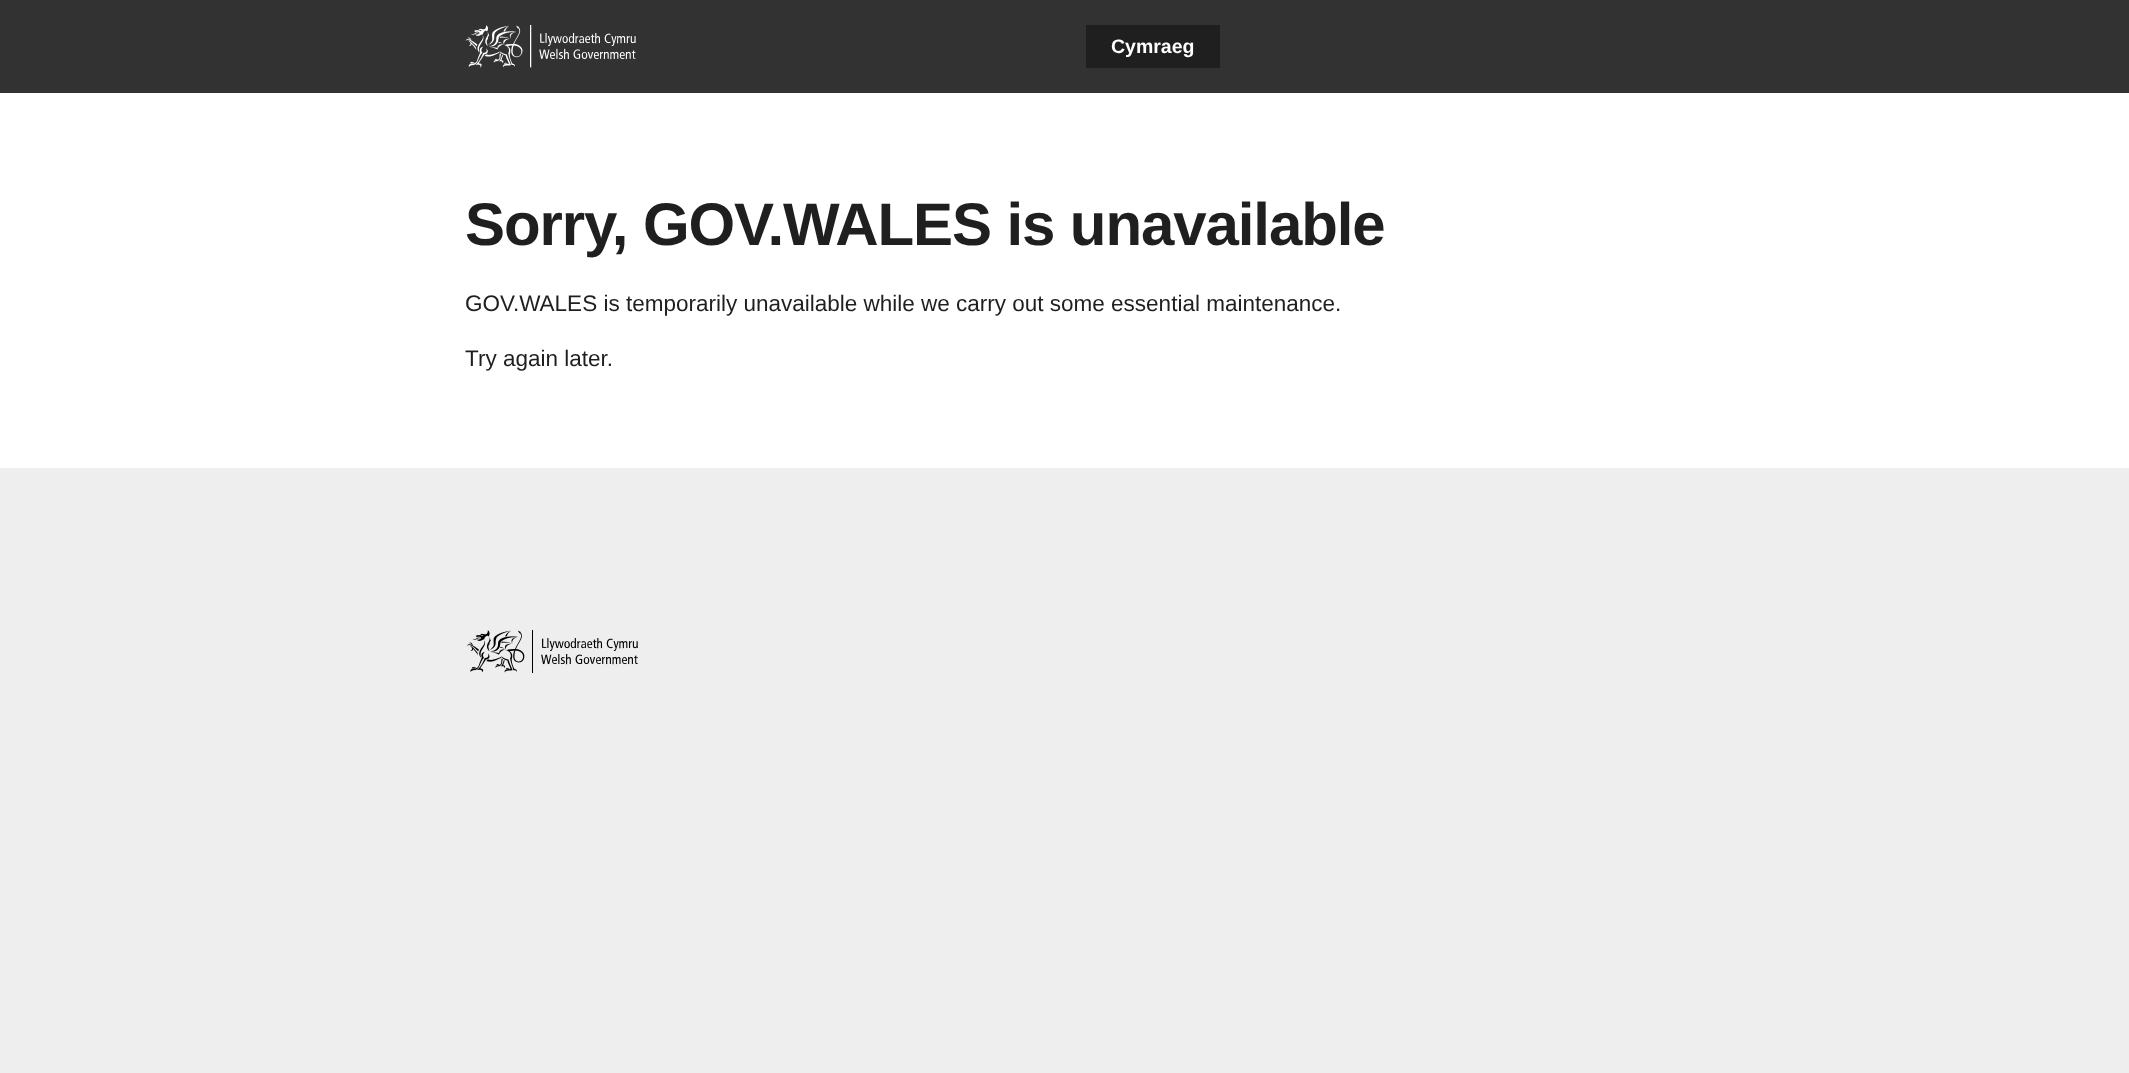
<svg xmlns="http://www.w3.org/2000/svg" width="2129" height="1073">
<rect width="100%" height="100%" fill="#eee"/>
<rect width="2129" height="93" fill="#323232"/>
<image x="465" y="25" width="171" height="43" href="media/1.png"/>
<rect x="1086" y="25" width="134" height="43" fill="#1f1f1f"/>
<text x="1111" y="53" style="font-family:Liberation Sans;font-size:19.5px;font-weight:bold;fill:#fff">Cymraeg</text>
<rect y="93" width="2129" height="375" fill="#fff"/>
<text x="465" y="245" style="font-family:Liberation Sans;font-size:60px;font-weight:bold;letter-spacing:-1.1px;fill:#1f1f1f">Sorry, GOV.WALES is unavailable</text>
<text x="465" y="311" style="font-family:Liberation Sans;font-size:22.5px;fill:#1f1f1f">GOV.WALES is temporarily unavailable while we carry out some essential maintenance.</text>
<text x="465" y="366" style="font-family:Liberation Sans;font-size:22.5px;fill:#1f1f1f">Try again later.</text>
<image x="467" y="630" width="171" height="43" href="media/2.png"/>
</svg>
